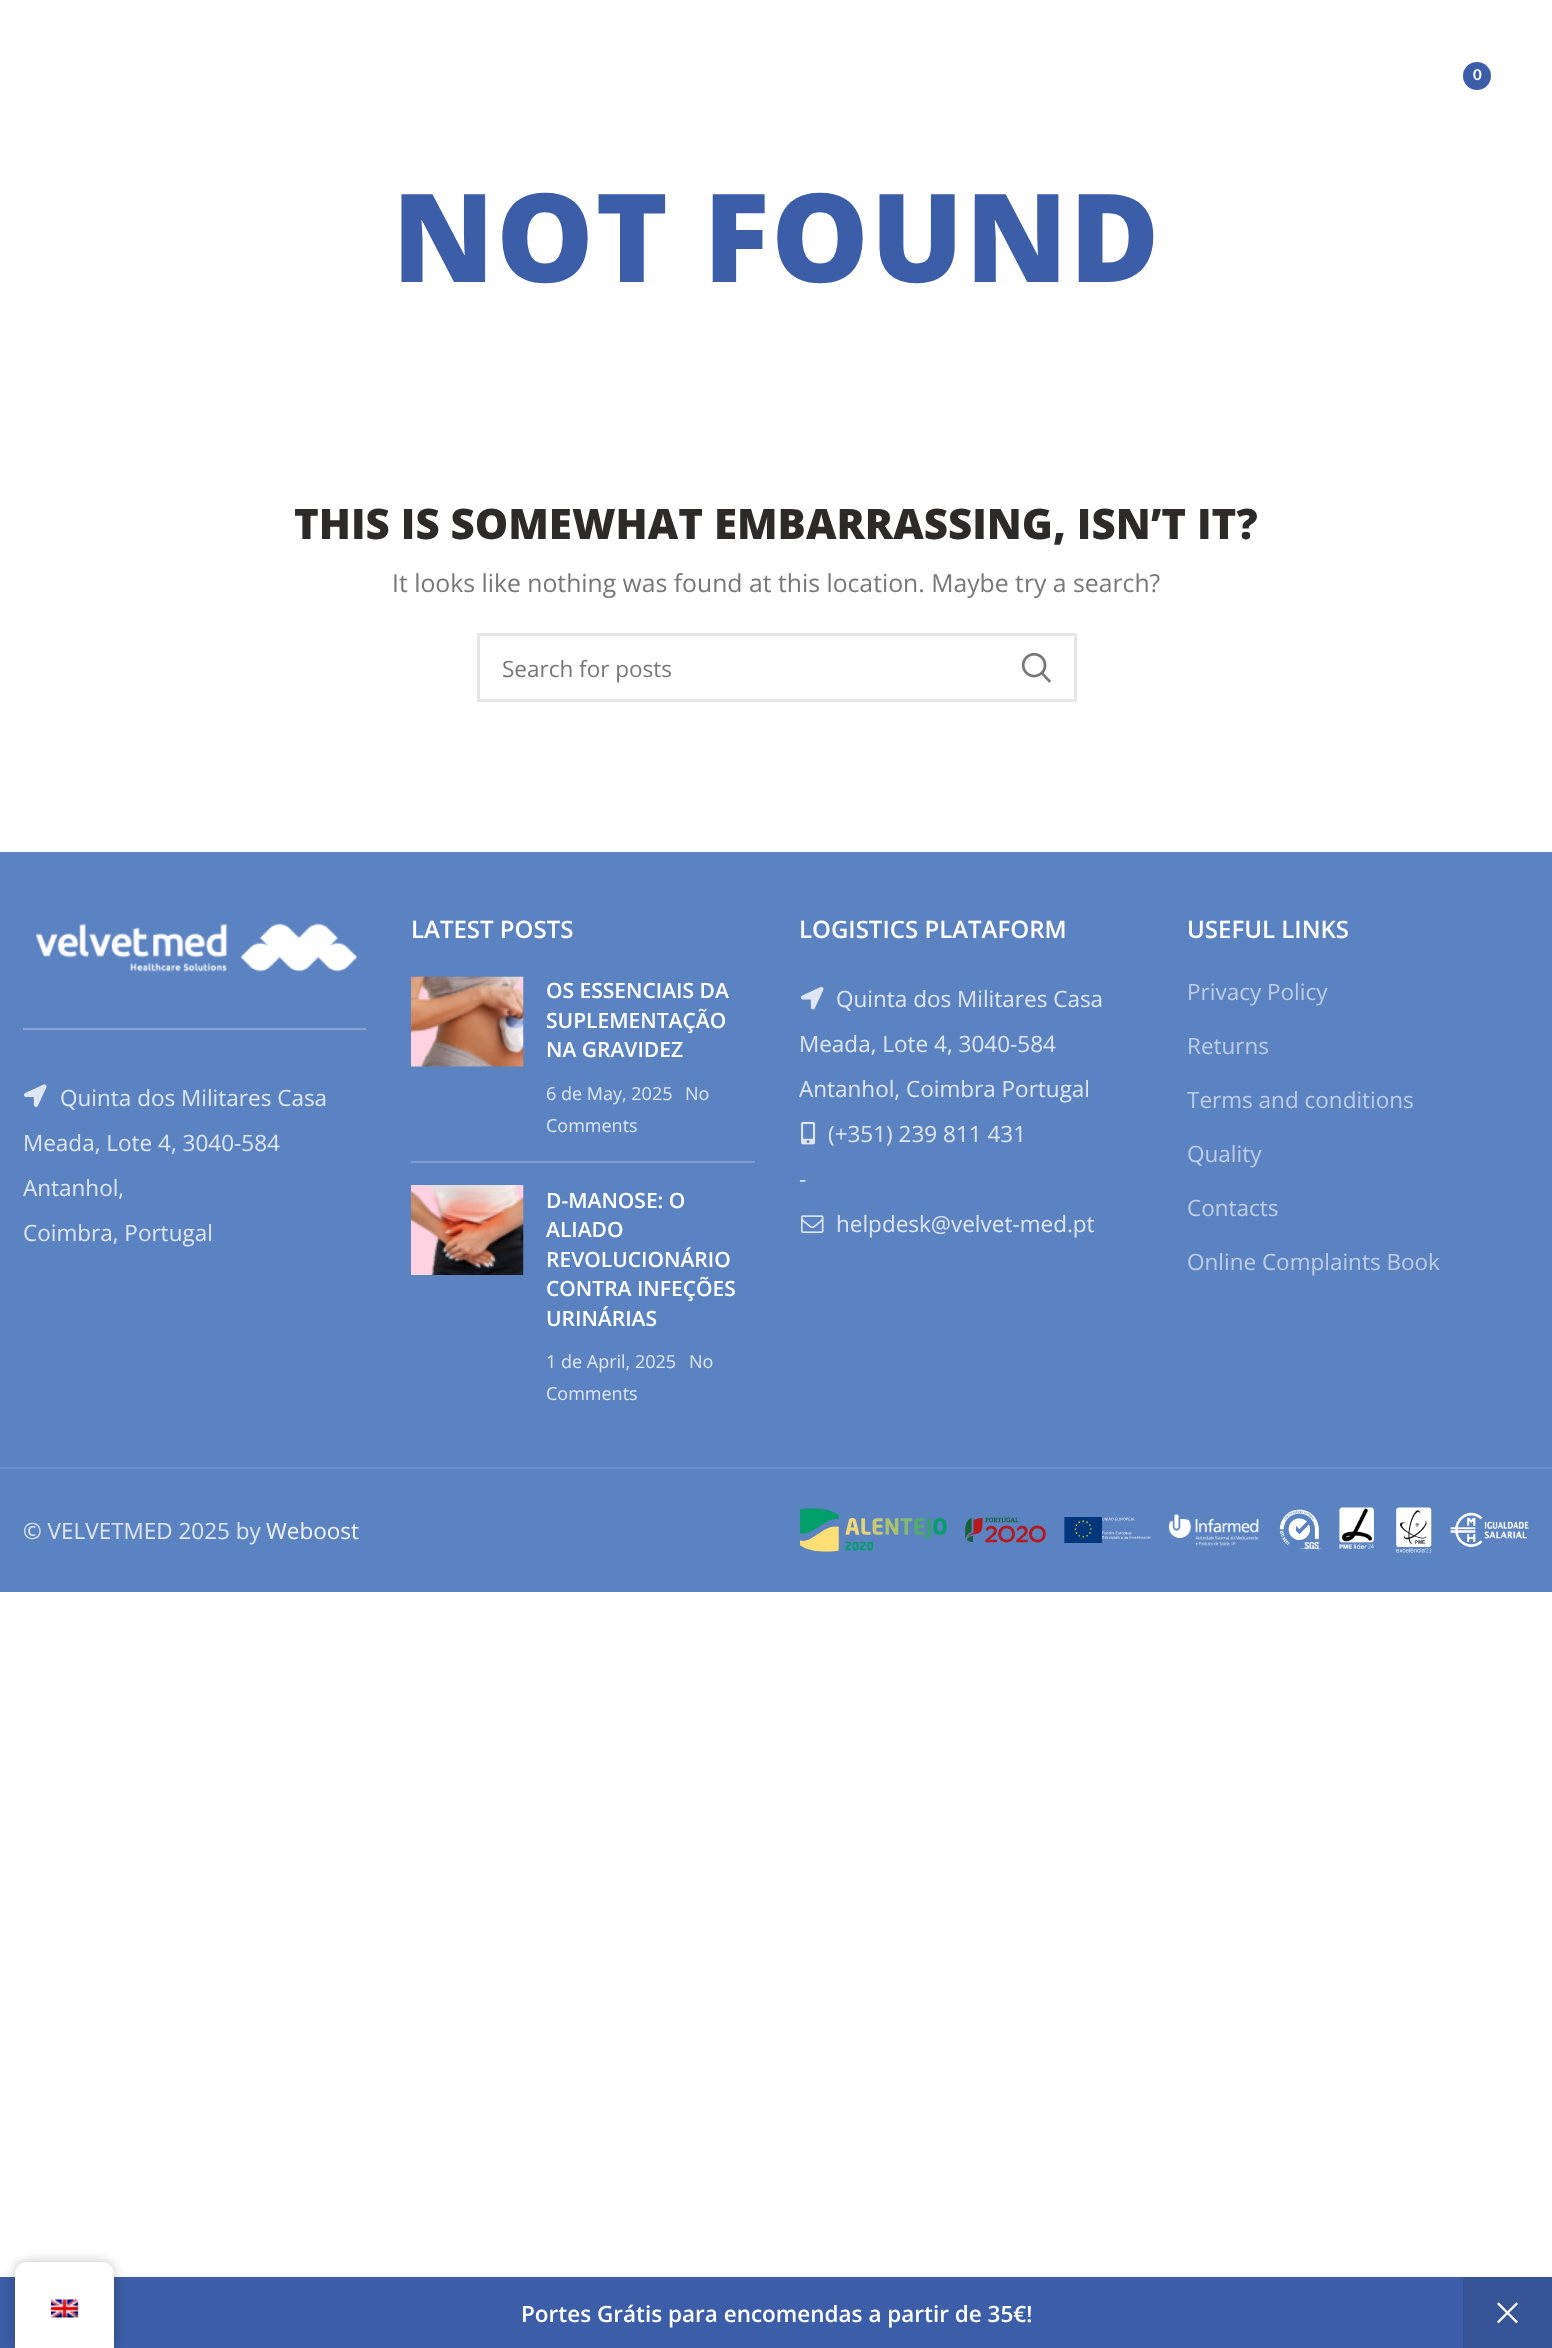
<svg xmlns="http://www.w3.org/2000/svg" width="1552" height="2348">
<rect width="100%" height="100%" fill="#fff"/>
<circle cx="1477" cy="76" r="14" fill="#3c5da7"/>
<text x="1473" y="80" style="font-family:Lato;font-size:15px;font-weight:bold;fill:#fff">0</text>
<text x="392" y="282" style="font-family:Open Sans;font-size:123px;font-weight:800;letter-spacing:1.5px;fill:#3c5da7">NOT FOUND</text>
<text x="294" y="539" style="font-family:Open Sans;font-size:42px;font-weight:800;fill:#2d2a2a">THIS IS SOMEWHAT EMBARRASSING, ISN’T IT?</text>
<text x="392" y="592" style="font-family:Open Sans;font-size:24.75px;fill:#777">It looks like nothing was found at this location. Maybe try a search?</text>
<rect x="478.5" y="634.5" width="597" height="66" fill="none" stroke="#e6e6e6" stroke-width="3"/>
<text x="502" y="677" style="font-family:Open Sans;font-size:22.5px;fill:#777">Search for posts</text>
<image x="1021" y="652" width="30" height="31" href="media/1.png"/>
<rect y="852" width="1552" height="740" fill="#5c83c1"/>
<rect x="23" y="1028" width="343" height="2" fill="#85a2d1"/>
<image x="35" y="923" width="323" height="49" href="media/2.png"/>
<image x="24" y="1084" width="23" height="23" href="media/3.png"/>
<text x="60" y="1106" style="font-family:Open Sans;font-size:22.5px;fill:#dee6f3">Quinta dos Militares Casa</text>
<text x="23" y="1151" style="font-family:Open Sans;font-size:22.5px;fill:#dee6f3">Meada, Lote 4, 3040-584</text>
<text x="23" y="1196" style="font-family:Open Sans;font-size:22.5px;fill:#dee6f3">Antanhol,</text>
<text x="23" y="1241" style="font-family:Open Sans;font-size:22.5px;fill:#dee6f3">Coimbra, Portugal</text>
<text x="411" y="938" style="font-family:Open Sans;font-size:24px;font-weight:600;fill:#fff">LATEST POSTS</text>
<rect x="411" y="1161" width="344" height="2" fill="#7d9ccd"/>
<image x="411" y="976" width="113" height="91" href="media/4.png"/>
<text x="546" y="998" style="font-family:Open Sans;font-size:21px;font-weight:600;fill:#fff">OS ESSENCIAIS DA</text>
<text x="546" y="1028" style="font-family:Open Sans;font-size:21px;font-weight:600;fill:#fff">SUPLEMENTAÇÃO</text>
<text x="546" y="1057" style="font-family:Open Sans;font-size:21px;font-weight:600;fill:#fff">NA GRAVIDEZ</text>
<text x="546" y="1100" style="font-family:Open Sans;font-size:18px;fill:#dee6f3">6 de May, 2025</text>
<text x="685" y="1100" style="font-family:Open Sans;font-size:18px;fill:#dee6f3">No</text>
<text x="546" y="1132" style="font-family:Open Sans;font-size:18px;fill:#dee6f3">Comments</text>
<image x="411" y="1185" width="113" height="90" href="media/5.png"/>
<text x="546" y="1208" style="font-family:Open Sans;font-size:21px;font-weight:600;fill:#fff">D-MANOSE: O</text>
<text x="546" y="1237" style="font-family:Open Sans;font-size:21px;font-weight:600;fill:#fff">ALIADO</text>
<text x="546" y="1267" style="font-family:Open Sans;font-size:21px;font-weight:600;fill:#fff">REVOLUCIONÁRIO</text>
<text x="546" y="1296" style="font-family:Open Sans;font-size:21px;font-weight:600;fill:#fff">CONTRA INFEÇÕES</text>
<text x="546" y="1326" style="font-family:Open Sans;font-size:21px;font-weight:600;fill:#fff">URINÁRIAS</text>
<text x="546" y="1368" style="font-family:Open Sans;font-size:18px;fill:#dee6f3">1 de April, 2025</text>
<text x="689" y="1368" style="font-family:Open Sans;font-size:18px;fill:#dee6f3">No</text>
<text x="546" y="1400" style="font-family:Open Sans;font-size:18px;fill:#dee6f3">Comments</text>
<text x="799" y="938" style="font-family:Open Sans;font-size:24px;font-weight:600;fill:#fff">LOGISTICS PLATAFORM</text>
<image x="801" y="986" width="23" height="24" href="media/6.png"/>
<text x="836" y="1007" style="font-family:Open Sans;font-size:22.5px;fill:#dee6f3">Quinta dos Militares Casa</text>
<text x="799" y="1052" style="font-family:Open Sans;font-size:22.5px;fill:#dee6f3">Meada, Lote 4, 3040-584</text>
<text x="799" y="1097" style="font-family:Open Sans;font-size:22.5px;fill:#dee6f3">Antanhol, Coimbra Portugal</text>
<image x="801" y="1121" width="15" height="24" href="media/7.png"/>
<text x="828" y="1142" style="font-family:Open Sans;font-size:22.5px;fill:#dee6f3">(+351) 239 811 431</text>
<text x="799" y="1187" style="font-family:Open Sans;font-size:22.5px;fill:#dee6f3">-</text>
<image x="801" y="1215" width="23" height="18" href="media/8.png"/>
<text x="836" y="1232" style="font-family:Open Sans;font-size:22.5px;fill:#dee6f3">helpdesk@velvet-med.pt</text>
<text x="1187" y="938" style="font-family:Open Sans;font-size:24px;font-weight:600;fill:#fff">USEFUL LINKS</text>
<text x="1187" y="1000" style="font-family:Open Sans;font-size:22.5px;fill:#becde6">Privacy Policy</text>
<text x="1187" y="1054" style="font-family:Open Sans;font-size:22.5px;fill:#becde6">Returns</text>
<text x="1187" y="1108" style="font-family:Open Sans;font-size:22.5px;fill:#becde6">Terms and conditions</text>
<text x="1187" y="1162" style="font-family:Open Sans;font-size:22.5px;fill:#becde6">Quality</text>
<text x="1187" y="1216" style="font-family:Open Sans;font-size:22.5px;fill:#becde6">Contacts</text>
<text x="1187" y="1270" style="font-family:Open Sans;font-size:22.5px;fill:#becde6">Online Complaints Book</text>
<rect y="1467" width="1552" height="2" fill="#6c8fc7"/>
<text x="23" y="1539" style="font-family:Open Sans;font-size:22.5px;fill:#dee6f3">© VELVETMED 2025 by</text>
<text x="266" y="1539" style="font-family:Open Sans;font-size:22.5px;fill:#eff3f9">Weboost</text>
<image x="800" y="1507" width="729" height="46" href="media/9.png"/>
<rect y="2277" width="1463" height="71" fill="#3c5da7"/>
<rect x="15" y="2262" width="99" height="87" rx="12" fill="#00000040" filter="blur(6px)"/>
<path d="M27 2262h75c6.5 0 12 5.5 12 12v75h-99v-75c0-6.5 5.5-12 12-12z" fill="#fff"/>
<image x="51" y="2299" width="28" height="19" href="media/10.png"/>
<text x="521" y="2322" style="font-family:Open Sans;font-size:22.5px;font-weight:600;fill:#fff">Portes Grátis para encomendas a partir de 35€!</text>
<rect x="1463" y="2277" width="89" height="71" fill="#365496"/>
<image x="1497" y="2302" width="21" height="22" href="media/11.png"/>
</svg>
